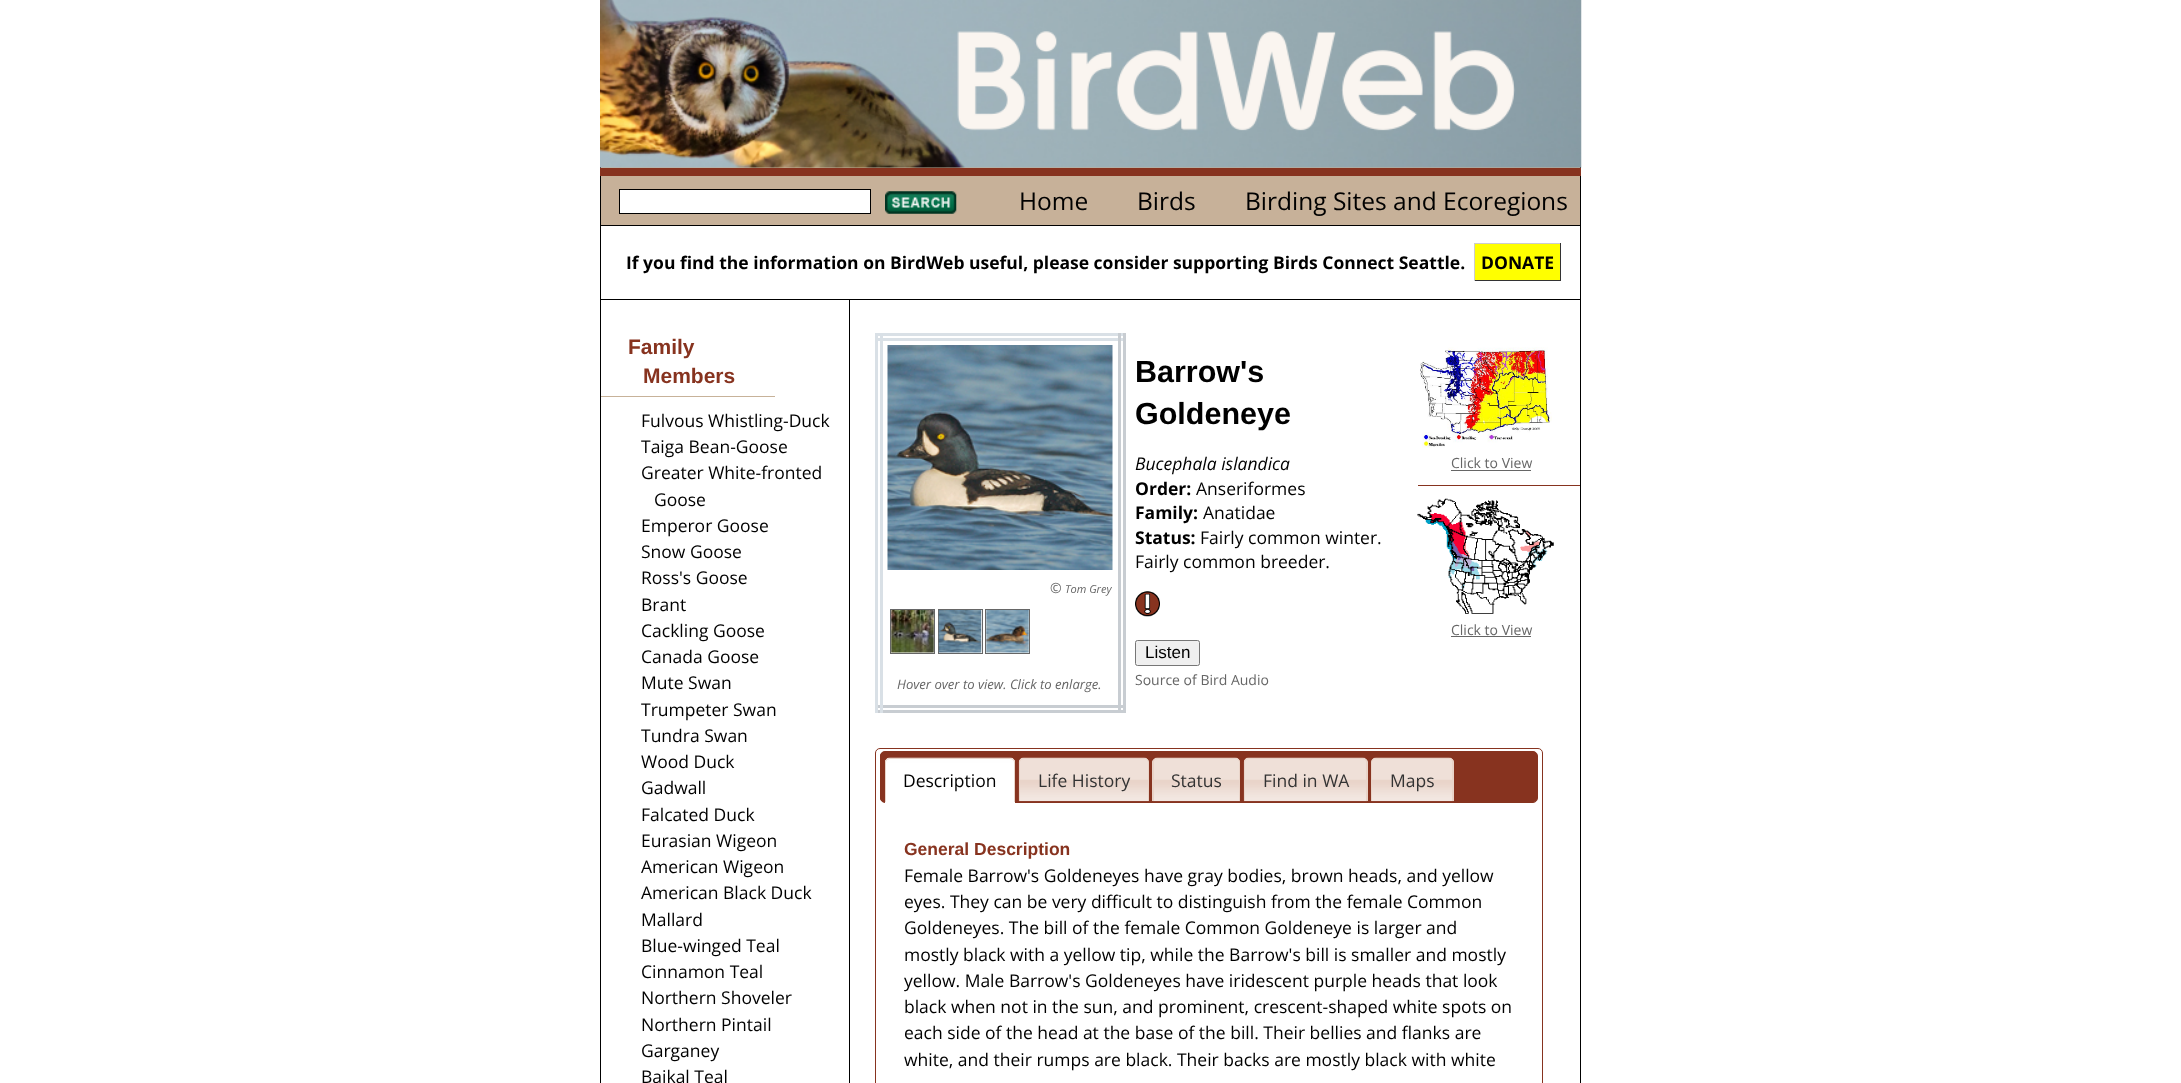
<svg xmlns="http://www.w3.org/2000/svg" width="2181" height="1083">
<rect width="100%" height="100%" fill="#fff"/>
<rect x="1580" y="167" width="1" height="916" fill="#000"/>
<rect x="600" y="167" width="1" height="916" fill="#000"/>
<rect x="601" y="167" width="979" height="58" fill="#c7b199"/>
<rect x="600" y="168" width="981" height="8" fill="#87331f"/>
<image x="600" y="0" width="982" height="168" href="media/1.png"/>
<rect x="619.5" y="189.5" width="251" height="24" fill="#fff" stroke="#000"/>
<image x="885" y="191" width="72" height="23" href="media/2.png"/>
<text x="1019" y="210" style="font-family:Open Sans;font-size:24.5px;fill:#000">Home</text>
<text x="1137" y="210" style="font-family:Open Sans;font-size:24.5px;fill:#000">Birds</text>
<text x="1245" y="210" style="font-family:Open Sans;font-size:24.5px;fill:#000">Birding Sites and Ecoregions</text>
<rect x="601" y="225" width="979" height="1" fill="#000"/>
<rect x="601" y="299" width="979" height="1" fill="#000"/>
<text x="626" y="269" style="font-family:Open Sans;font-size:17.5px;font-weight:bold;fill:#000">If you find the information on BirdWeb useful, please consider supporting Birds Connect Seattle.</text>
<rect x="1475" y="244" width="85" height="36" fill="#ff0"/>
<text x="1481" y="269" style="font-family:Open Sans;font-size:17.5px;font-weight:bold;fill:#000">DONATE</text>
<rect x="1474" y="243" width="87" height="1" fill="#ccc"/>
<rect x="1560" y="243" width="1" height="38" fill="#333"/>
<rect x="1474" y="280" width="87" height="1" fill="#333"/>
<rect x="1474" y="243" width="1" height="38" fill="#ccc"/>
<rect x="601" y="396" width="174" height="1" fill="#c7b299"/>
<text x="628" y="354" style="font-family:Liberation Sans;font-size:21px;font-weight:bold;fill:#87331f">Family</text>
<text x="643" y="383" style="font-family:Liberation Sans;font-size:21px;font-weight:bold;fill:#87331f">Members</text>
<text x="641" y="427" style="font-family:Open Sans;font-size:17.5px;fill:#000">Fulvous Whistling-Duck</text>
<text x="641" y="453" style="font-family:Open Sans;font-size:17.5px;fill:#000">Taiga Bean-Goose</text>
<text x="641" y="479" style="font-family:Open Sans;font-size:17.5px;fill:#000">Greater White-fronted</text>
<text x="654" y="506" style="font-family:Open Sans;font-size:17.5px;fill:#000">Goose</text>
<text x="641" y="532" style="font-family:Open Sans;font-size:17.5px;fill:#000">Emperor Goose</text>
<text x="641" y="558" style="font-family:Open Sans;font-size:17.5px;fill:#000">Snow Goose</text>
<text x="641" y="584" style="font-family:Open Sans;font-size:17.5px;fill:#000">Ross's Goose</text>
<text x="641" y="611" style="font-family:Open Sans;font-size:17.5px;fill:#000">Brant</text>
<text x="641" y="637" style="font-family:Open Sans;font-size:17.5px;fill:#000">Cackling Goose</text>
<text x="641" y="663" style="font-family:Open Sans;font-size:17.5px;fill:#000">Canada Goose</text>
<text x="641" y="689" style="font-family:Open Sans;font-size:17.5px;fill:#000">Mute Swan</text>
<text x="641" y="716" style="font-family:Open Sans;font-size:17.5px;fill:#000">Trumpeter Swan</text>
<text x="641" y="742" style="font-family:Open Sans;font-size:17.5px;fill:#000">Tundra Swan</text>
<text x="641" y="768" style="font-family:Open Sans;font-size:17.5px;fill:#000">Wood Duck</text>
<text x="641" y="794" style="font-family:Open Sans;font-size:17.5px;fill:#000">Gadwall</text>
<text x="641" y="821" style="font-family:Open Sans;font-size:17.5px;fill:#000">Falcated Duck</text>
<text x="641" y="847" style="font-family:Open Sans;font-size:17.5px;fill:#000">Eurasian Wigeon</text>
<text x="641" y="873" style="font-family:Open Sans;font-size:17.5px;fill:#000">American Wigeon</text>
<text x="641" y="899" style="font-family:Open Sans;font-size:17.5px;fill:#000">American Black Duck</text>
<text x="641" y="926" style="font-family:Open Sans;font-size:17.5px;fill:#000">Mallard</text>
<text x="641" y="952" style="font-family:Open Sans;font-size:17.5px;fill:#000">Blue-winged Teal</text>
<text x="641" y="978" style="font-family:Open Sans;font-size:17.5px;fill:#000">Cinnamon Teal</text>
<text x="641" y="1004" style="font-family:Open Sans;font-size:17.5px;fill:#000">Northern Shoveler</text>
<text x="641" y="1031" style="font-family:Open Sans;font-size:17.5px;fill:#000">Northern Pintail</text>
<text x="641" y="1057" style="font-family:Open Sans;font-size:17.5px;fill:#000">Garganey</text>
<text x="641" y="1083" style="font-family:Open Sans;font-size:17.5px;fill:#000">Baikal Teal</text>
<rect x="849" y="300" width="1" height="783" fill="#000"/>
<rect x="875" y="333" width="250" height="3" fill="#d9e0e6"/>
<rect x="875" y="338" width="250" height="3" fill="#d9e0e6"/>
<rect x="1118" y="333" width="3" height="380" fill="#c8cdd2"/>
<rect x="1123" y="333" width="3" height="380" fill="#c8cdd2"/>
<rect x="875" y="705" width="250" height="3" fill="#c8cdd2"/>
<rect x="875" y="710" width="250" height="3" fill="#c8cdd2"/>
<rect x="875" y="333" width="3" height="380" fill="#d9e0e6"/>
<rect x="880" y="333" width="3" height="380" fill="#d9e0e6"/>
<image x="887" y="345" width="226" height="225" href="media/3.png"/>
<text x="1050" y="593" style="font-family:Open Sans;font-size:14px;font-style:italic;fill:#666">©</text>
<text x="1065" y="593" style="font-family:Open Sans;font-size:11px;font-style:italic;fill:#666">Tom Grey</text>
<rect x="890.5" y="609.5" width="44" height="44" fill="none" stroke="#666"/>
<rect x="938.5" y="609.5" width="44" height="44" fill="none" stroke="#666"/>
<rect x="985.5" y="609.5" width="44" height="44" fill="none" stroke="#666"/>
<image x="891" y="610" width="43" height="43" href="media/4.png"/>
<image x="938" y="610" width="44" height="43" href="media/5.png"/>
<image x="986" y="610" width="43" height="43" href="media/6.png"/>
<text x="897" y="689" style="font-family:Open Sans;font-size:13.1px;font-style:italic;fill:#666">Hover over to view. Click to enlarge.</text>
<text x="1135" y="382" style="font-family:Liberation Sans;font-size:30.5px;font-weight:bold;fill:#000">Barrow's</text>
<text x="1135" y="424" style="font-family:Liberation Sans;font-size:30.5px;font-weight:bold;fill:#000">Goldeneye</text>
<text x="1135" y="470" style="font-family:Open Sans;font-size:17.5px;font-style:italic;fill:#000">Bucephala islandica</text>
<text x="1135" y="495" style="font-family:Open Sans;font-size:17.5px;font-weight:bold;fill:#000">Order:</text>
<text x="1196" y="495" style="font-family:Open Sans;font-size:17.5px;fill:#000">Anseriformes</text>
<text x="1135" y="519" style="font-family:Open Sans;font-size:17.5px;font-weight:bold;fill:#000">Family:</text>
<text x="1203" y="519" style="font-family:Open Sans;font-size:17.5px;fill:#000">Anatidae</text>
<text x="1135" y="544" style="font-family:Open Sans;font-size:17.5px;font-weight:bold;fill:#000">Status:</text>
<text x="1200" y="544" style="font-family:Open Sans;font-size:17.5px;fill:#000">Fairly common winter.</text>
<text x="1135" y="568" style="font-family:Open Sans;font-size:17.5px;fill:#000">Fairly common breeder.</text>
<image x="1135" y="591" width="25" height="26" href="media/7.png"/>
<rect x="1135.5" y="640.5" width="64" height="25" rx="2" fill="#efefef" stroke="#767676"/>
<text x="1145" y="658" style="font-family:Liberation Sans;font-size:17px;fill:#000">Listen</text>
<text x="1135" y="685" style="font-family:Open Sans;font-size:14px;fill:#666">Source of Bird Audio</text>
<image x="1420" y="347" width="132" height="101" href="media/8.png"/>
<text x="1451" y="468" style="font-family:Open Sans;font-size:14px;fill:#666">Click to View</text>
<rect x="1451" y="470" width="80" height="1" fill="#666"/>
<rect x="1418" y="485" width="162" height="1" fill="#87331f"/>
<image x="1417" y="498" width="137" height="116" href="media/9.png"/>
<text x="1451" y="635" style="font-family:Open Sans;font-size:14px;fill:#666">Click to View</text>
<rect x="1451" y="636" width="80" height="1" fill="#666"/>
<rect x="875.5" y="748.5" width="667" height="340" rx="4.5" fill="none" stroke="#87331f"/>
<image x="880" y="751" width="658" height="51" href="media/10.png"/>
<rect x="880.5" y="751.5" width="657" height="51" rx="4.5" fill="none" stroke="#87331f"/>
<path d="M890 758h120c3 0 5 2 5 5v40h-130v-40c0-3 2-5 5-5z" fill="#fff"/>
<image x="885" y="757" width="130" height="6" href="media/11.png"/>
<path d="M890 758h120c3 0 5 2 5 4v40h-130v-40c0-2 2-4 5-4zm0 1h120c2 0 4 1 4 3v40h-128v-40c0-2 2-3 4-3z" fill="#e9d4c9" fill-rule="evenodd"/>
<text x="903" y="787" style="font-family:Open Sans;font-size:17.5px;fill:#000">Description</text>
<image x="1018" y="757" width="131" height="45" href="media/12.png"/>
<path d="M1024 758h120c3 0 5 2 5 4v39h-130v-39c0-2 2-4 5-4zm0 1h120c2 0 4 1 4 3v39h-128v-39c0-2 2-3 4-3z" fill="#e9d4c9" fill-rule="evenodd"/>
<text x="1038" y="787" style="font-family:Open Sans;font-size:17.5px;fill:#333">Life History</text>
<image x="1152" y="757" width="88" height="45" href="media/13.png"/>
<path d="M1158 758h77c3 0 5 2 5 4v39h-88v-39c0-2 3-4 6-4zm0 1h77c2 0 4 1 4 3v39h-85v-39c0-2 1-3 4-3z" fill="#e9d4c9" fill-rule="evenodd"/>
<text x="1171" y="787" style="font-family:Open Sans;font-size:17.5px;fill:#333">Status</text>
<image x="1243" y="757" width="125" height="45" href="media/14.png"/>
<path d="M1249 758h113c3 0 6 2 6 4v39h-124v-39c0-2 2-4 5-4zm0 1h113c3 0 4 1 4 3v39h-121v-39c0-2 2-3 4-3z" fill="#e9d4c9" fill-rule="evenodd"/>
<text x="1263" y="787" style="font-family:Open Sans;font-size:17.5px;fill:#333">Find in WA</text>
<image x="1371" y="757" width="83" height="45" href="media/15.png"/>
<path d="M1376 758h73c3 0 5 2 5 4v39h-83v-39c0-2 2-4 5-4zm0 1h73c2 0 3 1 3 3v39h-80v-39c0-2 2-3 4-3z" fill="#e9d4c9" fill-rule="evenodd"/>
<text x="1390" y="787" style="font-family:Open Sans;font-size:17.5px;fill:#333">Maps</text>
<text x="904" y="855" style="font-family:Liberation Sans;font-size:17.5px;font-weight:bold;fill:#87331f">General Description</text>
<text x="904" y="882" style="font-family:Open Sans;font-size:17.5px;fill:#000">Female Barrow's Goldeneyes have gray bodies, brown heads, and yellow</text>
<text x="904" y="908" style="font-family:Open Sans;font-size:17.5px;fill:#000">eyes. They can be very difficult to distinguish from the female Common</text>
<text x="904" y="934" style="font-family:Open Sans;font-size:17.5px;fill:#000">Goldeneyes. The bill of the female Common Goldeneye is larger and</text>
<text x="904" y="961" style="font-family:Open Sans;font-size:17.5px;fill:#000">mostly black with a yellow tip, while the Barrow's bill is smaller and mostly</text>
<text x="904" y="987" style="font-family:Open Sans;font-size:17.5px;fill:#000">yellow. Male Barrow's Goldeneyes have iridescent purple heads that look</text>
<text x="904" y="1013" style="font-family:Open Sans;font-size:17.5px;fill:#000">black when not in the sun, and prominent, crescent-shaped white spots on</text>
<text x="904" y="1039" style="font-family:Open Sans;font-size:17.5px;fill:#000">each side of the head at the base of the bill. Their bellies and flanks are</text>
<text x="904" y="1066" style="font-family:Open Sans;font-size:17.5px;fill:#000">white, and their rumps are black. Their backs are mostly black with white</text>
</svg>
